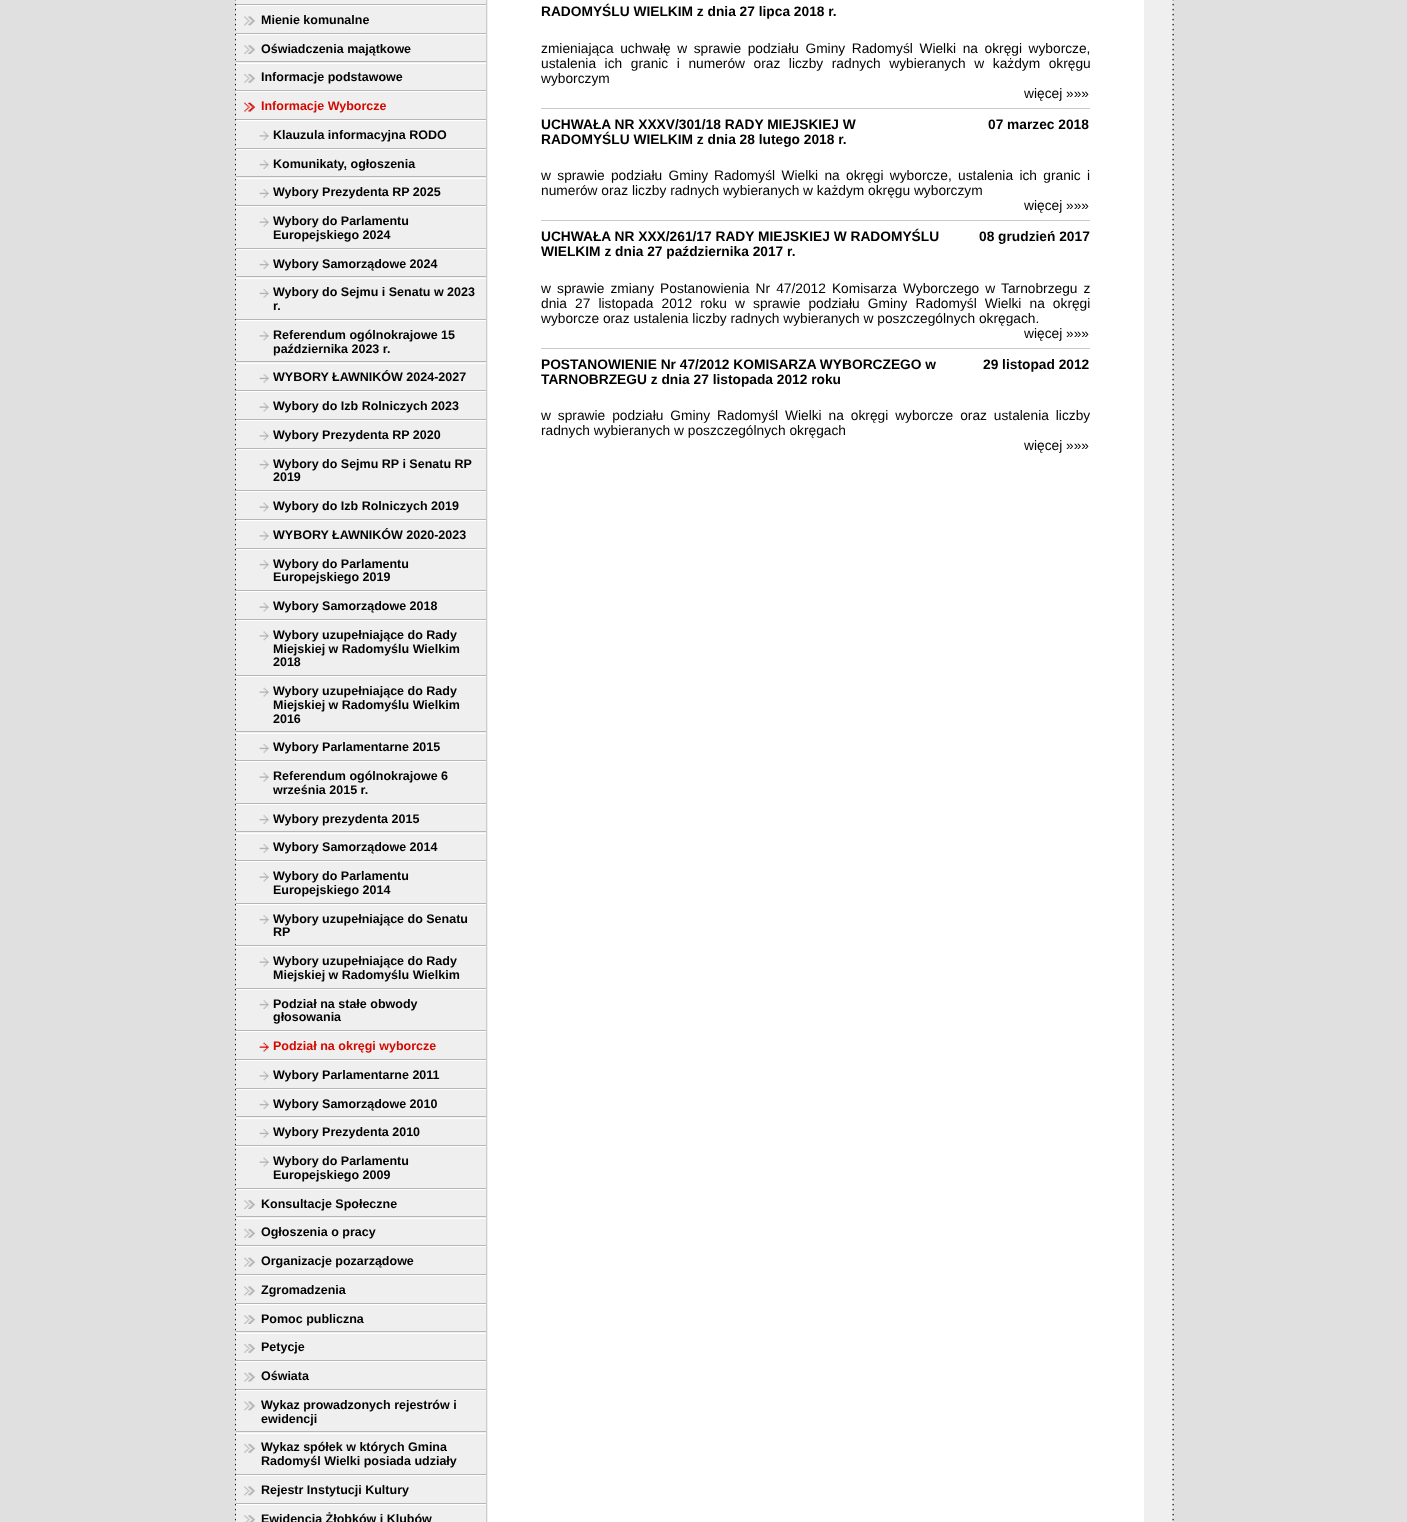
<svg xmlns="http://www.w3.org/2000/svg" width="1407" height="1522">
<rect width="100%" height="100%" fill="#e0e0e0"/>
<image x="235" y="0" width="1" height="1522" href="media/1.png"/>
<rect x="236" width="252" height="1522" fill="#efefef"/>
<rect x="486" width="1" height="1522" fill="#cecbce"/>
<rect x="236" y="4" width="250" height="1" fill="#b6b6b6"/>
<rect x="236" y="5" width="250" height="1" fill="#fff"/>
<image x="244" y="16" width="11" height="10" href="media/2.png"/>
<rect x="236" y="33" width="250" height="1" fill="#b6b6b6"/>
<text x="261" y="24" style="font-family:Liberation Sans;font-size:12.5px;font-weight:bold;fill:#000">Mienie komunalne</text>
<rect x="236" y="34" width="250" height="1" fill="#fff"/>
<image x="244" y="45" width="11" height="9" href="media/3.png"/>
<rect x="236" y="61" width="250" height="1" fill="#b6b6b6"/>
<text x="261" y="53" style="font-family:Liberation Sans;font-size:12.5px;font-weight:bold;fill:#000">Oświadczenia majątkowe</text>
<rect x="236" y="63" width="250" height="1" fill="#fff"/>
<image x="244" y="73" width="11" height="10" href="media/4.png"/>
<rect x="236" y="90" width="250" height="1" fill="#b6b6b6"/>
<text x="261" y="81" style="font-family:Liberation Sans;font-size:12.5px;font-weight:bold;fill:#000">Informacje podstawowe</text>
<rect x="236" y="91" width="250" height="1" fill="#fff"/>
<image x="244" y="102" width="11" height="10" href="media/5.png"/>
<rect x="236" y="119" width="250" height="1" fill="#b6b6b6"/>
<text x="261" y="110" style="font-family:Liberation Sans;font-size:12.5px;font-weight:bold;fill:#d30900">Informacje Wyborcze</text>
<rect x="236" y="120" width="250" height="1" fill="#fff"/>
<image x="259" y="131" width="10" height="10" href="media/6.png"/>
<rect x="236" y="148" width="250" height="1" fill="#b6b6b6"/>
<text x="273" y="139" style="font-family:Liberation Sans;font-size:12.5px;font-weight:bold;fill:#000">Klauzula informacyjna RODO</text>
<rect x="236" y="149" width="250" height="1" fill="#fff"/>
<image x="259" y="160" width="10" height="9" href="media/7.png"/>
<rect x="236" y="176" width="250" height="1" fill="#b6b6b6"/>
<text x="273" y="168" style="font-family:Liberation Sans;font-size:12.5px;font-weight:bold;fill:#000">Komunikaty, ogłoszenia</text>
<rect x="236" y="178" width="250" height="1" fill="#fff"/>
<image x="259" y="189" width="10" height="9" href="media/8.png"/>
<rect x="236" y="205" width="250" height="1" fill="#b6b6b6"/>
<text x="273" y="196" style="font-family:Liberation Sans;font-size:12.5px;font-weight:bold;fill:#000">Wybory Prezydenta RP 2025</text>
<rect x="236" y="206" width="250" height="1" fill="#fff"/>
<image x="259" y="217" width="10" height="10" href="media/9.png"/>
<rect x="236" y="248" width="250" height="1" fill="#b6b6b6"/>
<text x="273" y="225" style="font-family:Liberation Sans;font-size:12.5px;font-weight:bold;fill:#000">Wybory do Parlamentu</text>
<text x="273" y="239" style="font-family:Liberation Sans;font-size:12.5px;font-weight:bold;fill:#000">Europejskiego 2024</text>
<rect x="236" y="249" width="250" height="1" fill="#fff"/>
<image x="259" y="260" width="10" height="9" href="media/7.png"/>
<rect x="236" y="276" width="250" height="1" fill="#b6b6b6"/>
<text x="273" y="268" style="font-family:Liberation Sans;font-size:12.5px;font-weight:bold;fill:#000">Wybory Samorządowe 2024</text>
<rect x="236" y="278" width="250" height="1" fill="#fff"/>
<image x="259" y="289" width="10" height="9" href="media/8.png"/>
<rect x="236" y="319" width="250" height="1" fill="#b6b6b6"/>
<text x="273" y="296" style="font-family:Liberation Sans;font-size:12.5px;font-weight:bold;fill:#000">Wybory do Sejmu i Senatu w 2023</text>
<text x="273" y="310" style="font-family:Liberation Sans;font-size:12.5px;font-weight:bold;fill:#000">r.</text>
<rect x="236" y="320" width="250" height="1" fill="#fff"/>
<image x="259" y="331" width="10" height="10" href="media/6.png"/>
<rect x="236" y="361" width="250" height="1" fill="#b6b6b6"/>
<text x="273" y="339" style="font-family:Liberation Sans;font-size:12.5px;font-weight:bold;fill:#000">Referendum ogólnokrajowe 15</text>
<text x="273" y="353" style="font-family:Liberation Sans;font-size:12.5px;font-weight:bold;fill:#000">października 2023 r.</text>
<rect x="236" y="363" width="250" height="1" fill="#fff"/>
<image x="259" y="374" width="10" height="9" href="media/8.png"/>
<rect x="236" y="390" width="250" height="1" fill="#b6b6b6"/>
<text x="273" y="381" style="font-family:Liberation Sans;font-size:12.5px;font-weight:bold;fill:#000">WYBORY ŁAWNIKÓW 2024-2027</text>
<rect x="236" y="391" width="250" height="1" fill="#fff"/>
<image x="259" y="402" width="10" height="10" href="media/9.png"/>
<rect x="236" y="419" width="250" height="1" fill="#b6b6b6"/>
<text x="273" y="410" style="font-family:Liberation Sans;font-size:12.5px;font-weight:bold;fill:#000">Wybory do Izb Rolniczych 2023</text>
<rect x="236" y="420" width="250" height="1" fill="#fff"/>
<image x="259" y="431" width="10" height="10" href="media/6.png"/>
<rect x="236" y="448" width="250" height="1" fill="#b6b6b6"/>
<text x="273" y="439" style="font-family:Liberation Sans;font-size:12.5px;font-weight:bold;fill:#000">Wybory Prezydenta RP 2020</text>
<rect x="236" y="449" width="250" height="1" fill="#fff"/>
<image x="259" y="460" width="10" height="9" href="media/7.png"/>
<rect x="236" y="490" width="250" height="1" fill="#b6b6b6"/>
<text x="273" y="468" style="font-family:Liberation Sans;font-size:12.5px;font-weight:bold;fill:#000">Wybory do Sejmu RP i Senatu RP</text>
<text x="273" y="481" style="font-family:Liberation Sans;font-size:12.5px;font-weight:bold;fill:#000">2019</text>
<rect x="236" y="491" width="250" height="1" fill="#fff"/>
<image x="259" y="502" width="10" height="10" href="media/9.png"/>
<rect x="236" y="519" width="250" height="1" fill="#b6b6b6"/>
<text x="273" y="510" style="font-family:Liberation Sans;font-size:12.5px;font-weight:bold;fill:#000">Wybory do Izb Rolniczych 2019</text>
<rect x="236" y="520" width="250" height="1" fill="#fff"/>
<image x="259" y="531" width="10" height="10" href="media/6.png"/>
<rect x="236" y="548" width="250" height="1" fill="#b6b6b6"/>
<text x="273" y="539" style="font-family:Liberation Sans;font-size:12.5px;font-weight:bold;fill:#000">WYBORY ŁAWNIKÓW 2020-2023</text>
<rect x="236" y="549" width="250" height="1" fill="#fff"/>
<image x="259" y="560" width="10" height="9" href="media/7.png"/>
<rect x="236" y="590" width="250" height="1" fill="#b6b6b6"/>
<text x="273" y="568" style="font-family:Liberation Sans;font-size:12.5px;font-weight:bold;fill:#000">Wybory do Parlamentu</text>
<text x="273" y="581" style="font-family:Liberation Sans;font-size:12.5px;font-weight:bold;fill:#000">Europejskiego 2019</text>
<rect x="236" y="591" width="250" height="1" fill="#fff"/>
<image x="259" y="602" width="10" height="10" href="media/9.png"/>
<rect x="236" y="619" width="250" height="1" fill="#b6b6b6"/>
<text x="273" y="610" style="font-family:Liberation Sans;font-size:12.5px;font-weight:bold;fill:#000">Wybory Samorządowe 2018</text>
<rect x="236" y="620" width="250" height="1" fill="#fff"/>
<image x="259" y="631" width="10" height="10" href="media/6.png"/>
<rect x="236" y="675" width="250" height="1" fill="#b6b6b6"/>
<text x="273" y="639" style="font-family:Liberation Sans;font-size:12.5px;font-weight:bold;fill:#000">Wybory uzupełniające do Rady</text>
<text x="273" y="653" style="font-family:Liberation Sans;font-size:12.5px;font-weight:bold;fill:#000">Miejskiej w Radomyślu Wielkim</text>
<text x="273" y="666" style="font-family:Liberation Sans;font-size:12.5px;font-weight:bold;fill:#000">2018</text>
<rect x="236" y="676" width="250" height="1" fill="#fff"/>
<image x="259" y="687" width="10" height="10" href="media/9.png"/>
<rect x="236" y="731" width="250" height="1" fill="#b6b6b6"/>
<text x="273" y="695" style="font-family:Liberation Sans;font-size:12.5px;font-weight:bold;fill:#000">Wybory uzupełniające do Rady</text>
<text x="273" y="709" style="font-family:Liberation Sans;font-size:12.5px;font-weight:bold;fill:#000">Miejskiej w Radomyślu Wielkim</text>
<text x="273" y="723" style="font-family:Liberation Sans;font-size:12.5px;font-weight:bold;fill:#000">2016</text>
<rect x="236" y="733" width="250" height="1" fill="#fff"/>
<image x="259" y="744" width="10" height="9" href="media/8.png"/>
<rect x="236" y="760" width="250" height="1" fill="#b6b6b6"/>
<text x="273" y="751" style="font-family:Liberation Sans;font-size:12.5px;font-weight:bold;fill:#000">Wybory Parlamentarne 2015</text>
<rect x="236" y="761" width="250" height="1" fill="#fff"/>
<image x="259" y="772" width="10" height="10" href="media/9.png"/>
<rect x="236" y="803" width="250" height="1" fill="#b6b6b6"/>
<text x="273" y="780" style="font-family:Liberation Sans;font-size:12.5px;font-weight:bold;fill:#000">Referendum ogólnokrajowe 6</text>
<text x="273" y="794" style="font-family:Liberation Sans;font-size:12.5px;font-weight:bold;fill:#000">września 2015 r.</text>
<rect x="236" y="804" width="250" height="1" fill="#fff"/>
<image x="259" y="815" width="10" height="9" href="media/7.png"/>
<rect x="236" y="831" width="250" height="1" fill="#b6b6b6"/>
<text x="273" y="823" style="font-family:Liberation Sans;font-size:12.5px;font-weight:bold;fill:#000">Wybory prezydenta 2015</text>
<rect x="236" y="833" width="250" height="1" fill="#fff"/>
<image x="259" y="844" width="10" height="9" href="media/8.png"/>
<rect x="236" y="860" width="250" height="1" fill="#b6b6b6"/>
<text x="273" y="851" style="font-family:Liberation Sans;font-size:12.5px;font-weight:bold;fill:#000">Wybory Samorządowe 2014</text>
<rect x="236" y="861" width="250" height="1" fill="#fff"/>
<image x="259" y="872" width="10" height="10" href="media/9.png"/>
<rect x="236" y="903" width="250" height="1" fill="#b6b6b6"/>
<text x="273" y="880" style="font-family:Liberation Sans;font-size:12.5px;font-weight:bold;fill:#000">Wybory do Parlamentu</text>
<text x="273" y="894" style="font-family:Liberation Sans;font-size:12.5px;font-weight:bold;fill:#000">Europejskiego 2014</text>
<rect x="236" y="904" width="250" height="1" fill="#fff"/>
<image x="259" y="915" width="10" height="9" href="media/7.png"/>
<rect x="236" y="945" width="250" height="1" fill="#b6b6b6"/>
<text x="273" y="923" style="font-family:Liberation Sans;font-size:12.5px;font-weight:bold;fill:#000">Wybory uzupełniające do Senatu</text>
<text x="273" y="936" style="font-family:Liberation Sans;font-size:12.5px;font-weight:bold;fill:#000">RP</text>
<rect x="236" y="946" width="250" height="1" fill="#fff"/>
<image x="259" y="957" width="10" height="10" href="media/9.png"/>
<rect x="236" y="988" width="250" height="1" fill="#b6b6b6"/>
<text x="273" y="965" style="font-family:Liberation Sans;font-size:12.5px;font-weight:bold;fill:#000">Wybory uzupełniające do Rady</text>
<text x="273" y="979" style="font-family:Liberation Sans;font-size:12.5px;font-weight:bold;fill:#000">Miejskiej w Radomyślu Wielkim</text>
<rect x="236" y="989" width="250" height="1" fill="#fff"/>
<image x="259" y="1000" width="10" height="9" href="media/7.png"/>
<rect x="236" y="1030" width="250" height="1" fill="#b6b6b6"/>
<text x="273" y="1008" style="font-family:Liberation Sans;font-size:12.5px;font-weight:bold;fill:#000">Podział na stałe obwody</text>
<text x="273" y="1021" style="font-family:Liberation Sans;font-size:12.5px;font-weight:bold;fill:#000">głosowania</text>
<rect x="236" y="1031" width="250" height="1" fill="#fff"/>
<image x="259" y="1042" width="10" height="10" href="media/10.png"/>
<rect x="236" y="1059" width="250" height="1" fill="#b6b6b6"/>
<text x="273" y="1050" style="font-family:Liberation Sans;font-size:12.5px;font-weight:bold;fill:#d30900">Podział na okręgi wyborcze</text>
<rect x="236" y="1060" width="250" height="1" fill="#fff"/>
<image x="259" y="1071" width="10" height="10" href="media/6.png"/>
<rect x="236" y="1088" width="250" height="1" fill="#b6b6b6"/>
<text x="273" y="1079" style="font-family:Liberation Sans;font-size:12.5px;font-weight:bold;fill:#000">Wybory Parlamentarne 2011</text>
<rect x="236" y="1089" width="250" height="1" fill="#fff"/>
<image x="259" y="1100" width="10" height="9" href="media/7.png"/>
<rect x="236" y="1116" width="250" height="1" fill="#b6b6b6"/>
<text x="273" y="1108" style="font-family:Liberation Sans;font-size:12.5px;font-weight:bold;fill:#000">Wybory Samorządowe 2010</text>
<rect x="236" y="1118" width="250" height="1" fill="#fff"/>
<image x="259" y="1129" width="10" height="9" href="media/8.png"/>
<rect x="236" y="1145" width="250" height="1" fill="#b6b6b6"/>
<text x="273" y="1136" style="font-family:Liberation Sans;font-size:12.5px;font-weight:bold;fill:#000">Wybory Prezydenta 2010</text>
<rect x="236" y="1146" width="250" height="1" fill="#fff"/>
<image x="259" y="1157" width="10" height="10" href="media/9.png"/>
<rect x="236" y="1188" width="250" height="1" fill="#b6b6b6"/>
<text x="273" y="1165" style="font-family:Liberation Sans;font-size:12.5px;font-weight:bold;fill:#000">Wybory do Parlamentu</text>
<text x="273" y="1179" style="font-family:Liberation Sans;font-size:12.5px;font-weight:bold;fill:#000">Europejskiego 2009</text>
<rect x="236" y="1189" width="250" height="1" fill="#fff"/>
<image x="244" y="1200" width="11" height="9" href="media/3.png"/>
<rect x="236" y="1216" width="250" height="1" fill="#b6b6b6"/>
<text x="261" y="1208" style="font-family:Liberation Sans;font-size:12.5px;font-weight:bold;fill:#000">Konsultacje Społeczne</text>
<rect x="236" y="1218" width="250" height="1" fill="#fff"/>
<image x="244" y="1228" width="11" height="10" href="media/4.png"/>
<rect x="236" y="1245" width="250" height="1" fill="#b6b6b6"/>
<text x="261" y="1236" style="font-family:Liberation Sans;font-size:12.5px;font-weight:bold;fill:#000">Ogłoszenia o pracy</text>
<rect x="236" y="1246" width="250" height="1" fill="#fff"/>
<image x="244" y="1257" width="11" height="10" href="media/11.png"/>
<rect x="236" y="1274" width="250" height="1" fill="#b6b6b6"/>
<text x="261" y="1265" style="font-family:Liberation Sans;font-size:12.5px;font-weight:bold;fill:#000">Organizacje pozarządowe</text>
<rect x="236" y="1275" width="250" height="1" fill="#fff"/>
<image x="244" y="1286" width="11" height="10" href="media/2.png"/>
<rect x="236" y="1303" width="250" height="1" fill="#b6b6b6"/>
<text x="261" y="1294" style="font-family:Liberation Sans;font-size:12.5px;font-weight:bold;fill:#000">Zgromadzenia</text>
<rect x="236" y="1304" width="250" height="1" fill="#fff"/>
<image x="244" y="1315" width="11" height="9" href="media/3.png"/>
<rect x="236" y="1331" width="250" height="1" fill="#b6b6b6"/>
<text x="261" y="1323" style="font-family:Liberation Sans;font-size:12.5px;font-weight:bold;fill:#000">Pomoc publiczna</text>
<rect x="236" y="1333" width="250" height="1" fill="#fff"/>
<image x="244" y="1343" width="11" height="10" href="media/4.png"/>
<rect x="236" y="1360" width="250" height="1" fill="#b6b6b6"/>
<text x="261" y="1351" style="font-family:Liberation Sans;font-size:12.5px;font-weight:bold;fill:#000">Petycje</text>
<rect x="236" y="1361" width="250" height="1" fill="#fff"/>
<image x="244" y="1372" width="11" height="10" href="media/11.png"/>
<rect x="236" y="1389" width="250" height="1" fill="#b6b6b6"/>
<text x="261" y="1380" style="font-family:Liberation Sans;font-size:12.5px;font-weight:bold;fill:#000">Oświata</text>
<rect x="236" y="1390" width="250" height="1" fill="#fff"/>
<image x="244" y="1401" width="11" height="10" href="media/2.png"/>
<rect x="236" y="1431" width="250" height="1" fill="#b6b6b6"/>
<text x="261" y="1409" style="font-family:Liberation Sans;font-size:12.5px;font-weight:bold;fill:#000">Wykaz prowadzonych rejestrów i</text>
<text x="261" y="1423" style="font-family:Liberation Sans;font-size:12.5px;font-weight:bold;fill:#000">ewidencji</text>
<rect x="236" y="1433" width="250" height="1" fill="#fff"/>
<image x="244" y="1443" width="11" height="10" href="media/4.png"/>
<rect x="236" y="1474" width="250" height="1" fill="#b6b6b6"/>
<text x="261" y="1451" style="font-family:Liberation Sans;font-size:12.5px;font-weight:bold;fill:#000">Wykaz spółek w których Gmina</text>
<text x="261" y="1465" style="font-family:Liberation Sans;font-size:12.5px;font-weight:bold;fill:#000">Radomyśl Wielki posiada udziały</text>
<rect x="236" y="1475" width="250" height="1" fill="#fff"/>
<image x="244" y="1486" width="11" height="10" href="media/2.png"/>
<rect x="236" y="1503" width="250" height="1" fill="#b6b6b6"/>
<text x="261" y="1494" style="font-family:Liberation Sans;font-size:12.5px;font-weight:bold;fill:#000">Rejestr Instytucji Kultury</text>
<rect x="236" y="1504" width="250" height="1" fill="#fff"/>
<image x="244" y="1515" width="11" height="7" href="media/12.png"/>
<text x="261" y="1523" style="font-family:Liberation Sans;font-size:12.5px;font-weight:bold;fill:#000">Ewidencja Żłobków i Klubów</text>
<rect x="488" width="656" height="1522" fill="#fff"/>
<text x="541" y="16" style="font-family:Liberation Sans;font-size:13.75px;font-weight:bold;fill:#000">RADOMYŚLU WIELKIM z dnia 27 lipca 2018 r.</text>
<text x="541" y="53" word-spacing="2.75" style="font-family:Liberation Sans;font-size:13.75px;fill:#000">zmieniająca uchwałę w sprawie podziału Gminy Radomyśl Wielki na okręgi wyborcze,</text>
<text x="541" y="68" word-spacing="4.75" style="font-family:Liberation Sans;font-size:13.75px;fill:#000">ustalenia ich granic i numerów oraz liczby radnych wybieranych w każdym okręgu</text>
<text x="541" y="83" style="font-family:Liberation Sans;font-size:13.75px;fill:#000">wyborczym</text>
<text x="1024" y="98" style="font-family:Liberation Sans;font-size:13.75px;fill:#000">więcej »»»</text>
<rect x="541" y="108" width="549" height="1" fill="#cbcbcb"/>
<text x="541" y="129" style="font-family:Liberation Sans;font-size:13.75px;font-weight:bold;fill:#000">UCHWAŁA NR XXXV/301/18 RADY MIEJSKIEJ W</text>
<text x="541" y="144" style="font-family:Liberation Sans;font-size:13.75px;font-weight:bold;fill:#000">RADOMYŚLU WIELKIM z dnia 28 lutego 2018 r.</text>
<text x="988" y="129" style="font-family:Liberation Sans;font-size:13.75px;font-weight:bold;fill:#000">07 marzec 2018</text>
<text x="541" y="180" word-spacing="2.5" style="font-family:Liberation Sans;font-size:13.75px;fill:#000">w sprawie podziału Gminy</text>
<text x="714" y="180" word-spacing="2.5" style="font-family:Liberation Sans;font-size:13.75px;fill:#000">Radomyśl Wielki na okręgi wyborcze, ustalenia ich granic i</text>
<text x="541" y="195" style="font-family:Liberation Sans;font-size:13.75px;fill:#000">numerów oraz liczby radnych wybieranych w każdym okręgu wyborczym</text>
<text x="1024" y="210" style="font-family:Liberation Sans;font-size:13.75px;fill:#000">więcej »»»</text>
<rect x="541" y="220" width="549" height="1" fill="#cbcbcb"/>
<text x="541" y="241" style="font-family:Liberation Sans;font-size:13.75px;font-weight:bold;fill:#000">UCHWAŁA NR XXX/261/17 RADY MIEJSKIEJ W RADOMYŚLU</text>
<text x="541" y="256" style="font-family:Liberation Sans;font-size:13.75px;font-weight:bold;fill:#000">WIELKIM z dnia 27 października 2017 r.</text>
<text x="979" y="241" style="font-family:Liberation Sans;font-size:13.75px;font-weight:bold;fill:#000">08 grudzień 2017</text>
<text x="541" y="293" word-spacing="2.25" style="font-family:Liberation Sans;font-size:13.75px;fill:#000">w sprawie zmiany Postanowienia Nr 47/2012 Komisarza Wyborczego w Tarnobrzegu z</text>
<text x="541" y="308" word-spacing="4.25" style="font-family:Liberation Sans;font-size:13.75px;fill:#000">dnia 27 listopada 2012 roku w sprawie podziału Gminy Radomyśl Wielki na okręgi</text>
<text x="541" y="323" style="font-family:Liberation Sans;font-size:13.75px;fill:#000">wyborcze oraz ustalenia liczby radnych wybieranych w poszczególnych okręgach.</text>
<text x="1024" y="338" style="font-family:Liberation Sans;font-size:13.75px;fill:#000">więcej »»»</text>
<rect x="541" y="348" width="549" height="1" fill="#cbcbcb"/>
<text x="541" y="369" style="font-family:Liberation Sans;font-size:13.75px;font-weight:bold;fill:#000">POSTANOWIENIE Nr 47/2012 KOMISARZA WYBORCZEGO w</text>
<text x="541" y="384" style="font-family:Liberation Sans;font-size:13.75px;font-weight:bold;fill:#000">TARNOBRZEGU z dnia 27 listopada 2012 roku</text>
<text x="983" y="369" style="font-family:Liberation Sans;font-size:13.75px;font-weight:bold;fill:#000">29 listopad 2012</text>
<text x="541" y="420" word-spacing="3.1" style="font-family:Liberation Sans;font-size:13.75px;fill:#000">w sprawie podziału Gminy Radomyśl Wielki na okręgi wyborcze oraz ustalenia liczby</text>
<text x="541" y="435" style="font-family:Liberation Sans;font-size:13.75px;fill:#000">radnych wybieranych w poszczególnych okręgach</text>
<text x="1024" y="450" style="font-family:Liberation Sans;font-size:13.75px;fill:#000">więcej »»»</text>
<rect x="1144" width="29" height="1522" fill="#efefef"/>
<image x="1172" y="0" width="2" height="1522" href="media/13.png"/>
</svg>
